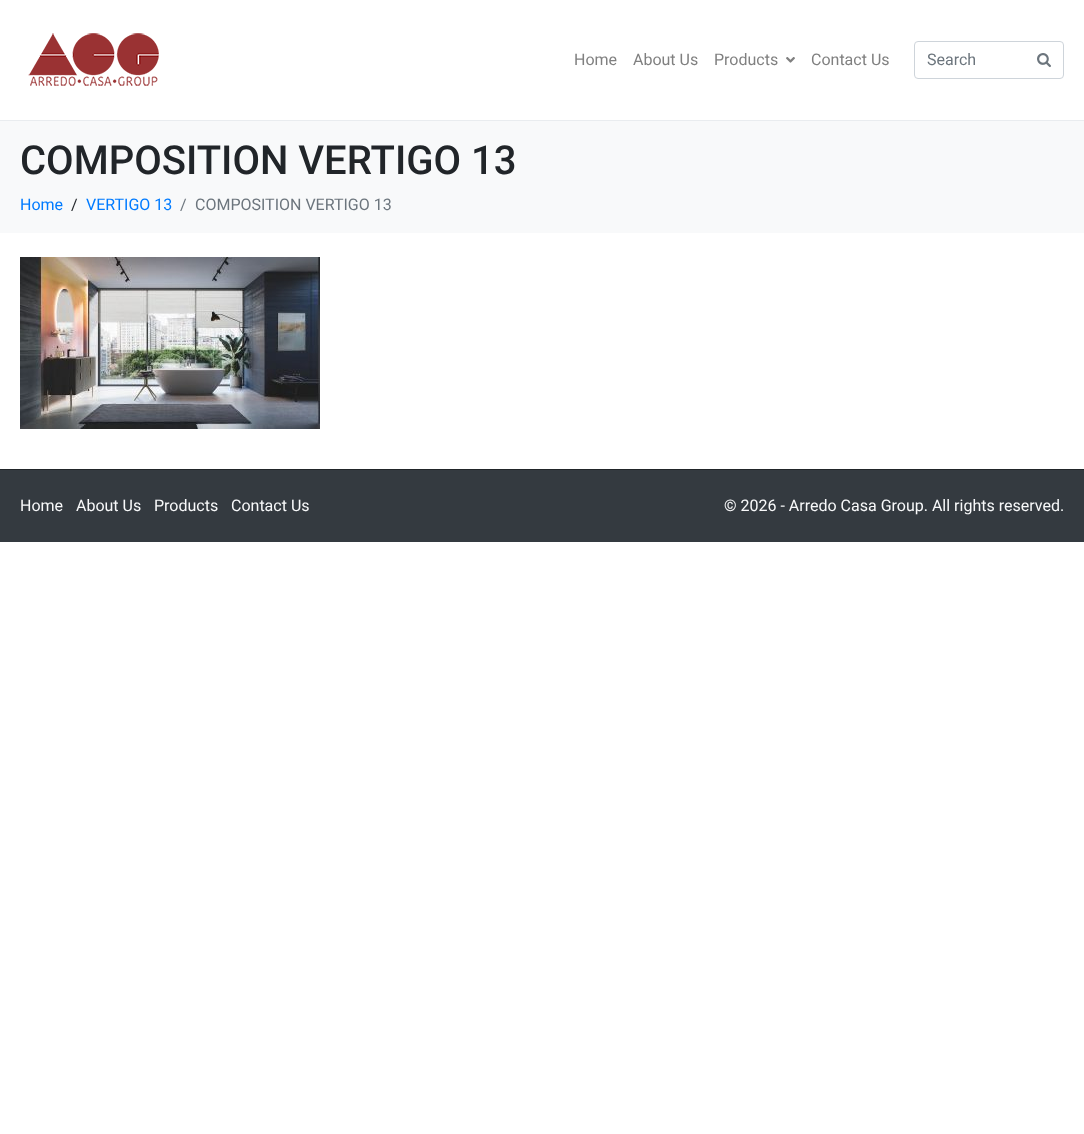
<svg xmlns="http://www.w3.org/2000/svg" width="1084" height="1134">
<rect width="100%" height="100%" fill="#fff"/>
<rect y="120" width="1084" height="1" fill="#e9ecef"/>
<image x="28" y="33" width="132" height="53" href="media/1.png"/>
<text x="574" y="65" style="font-family:Roboto;font-size:16px;fill:#808080">Home</text>
<text x="633" y="65" style="font-family:Roboto;font-size:16px;fill:#808080">About Us</text>
<text x="714" y="65" style="font-family:Roboto;font-size:16px;fill:#808080">Products</text>
<image x="786" y="57" width="9" height="6" href="media/2.png"/>
<text x="811" y="65" style="font-family:Roboto;font-size:16px;fill:#808080">Contact Us</text>
<rect x="914.5" y="41.5" width="149" height="37" rx="3.5" fill="none" stroke="#ced4da"/>
<text x="927" y="65" style="font-family:Roboto;font-size:16px;fill:#6c757d">Search</text>
<image x="1037" y="53" width="14" height="15" href="media/3.png"/>
<rect y="121" width="1084" height="112" fill="#f8f9fa"/>
<text x="20" y="174" style="font-family:Roboto;font-size:40px;font-weight:500;fill:#212529">COMPOSITION VERTIGO 13</text>
<text x="20" y="210" style="font-family:Roboto;font-size:16px;fill:#007bff">Home</text>
<text x="71" y="210" style="font-family:Roboto;font-size:16px;fill:#212529">/</text>
<text x="86" y="210" style="font-family:Roboto;font-size:16px;fill:#007bff">VERTIGO 13</text>
<text x="180" y="210" style="font-family:Roboto;font-size:16px;fill:#6c757d">/</text>
<text x="195" y="210" style="font-family:Roboto;font-size:16px;fill:#6c757d">COMPOSITION VERTIGO 13</text>
<image x="20" y="257" width="300" height="172" href="media/4.png"/>
<rect y="470" width="1084" height="72" fill="#343a40"/>
<rect y="469" width="1084" height="1" fill="#212529"/>
<text x="20" y="511" style="font-family:Roboto;font-size:16px;fill:#f8f9fa">Home</text>
<text x="76" y="511" style="font-family:Roboto;font-size:16px;fill:#f8f9fa">About Us</text>
<text x="154" y="511" style="font-family:Roboto;font-size:16px;fill:#f8f9fa">Products</text>
<text x="231" y="511" style="font-family:Roboto;font-size:16px;fill:#f8f9fa">Contact Us</text>
<text x="724" y="511" style="font-family:Roboto;font-size:16px;fill:#f8f9fa">© 2026 - Arredo Casa Group. All rights reserved.</text>
</svg>
